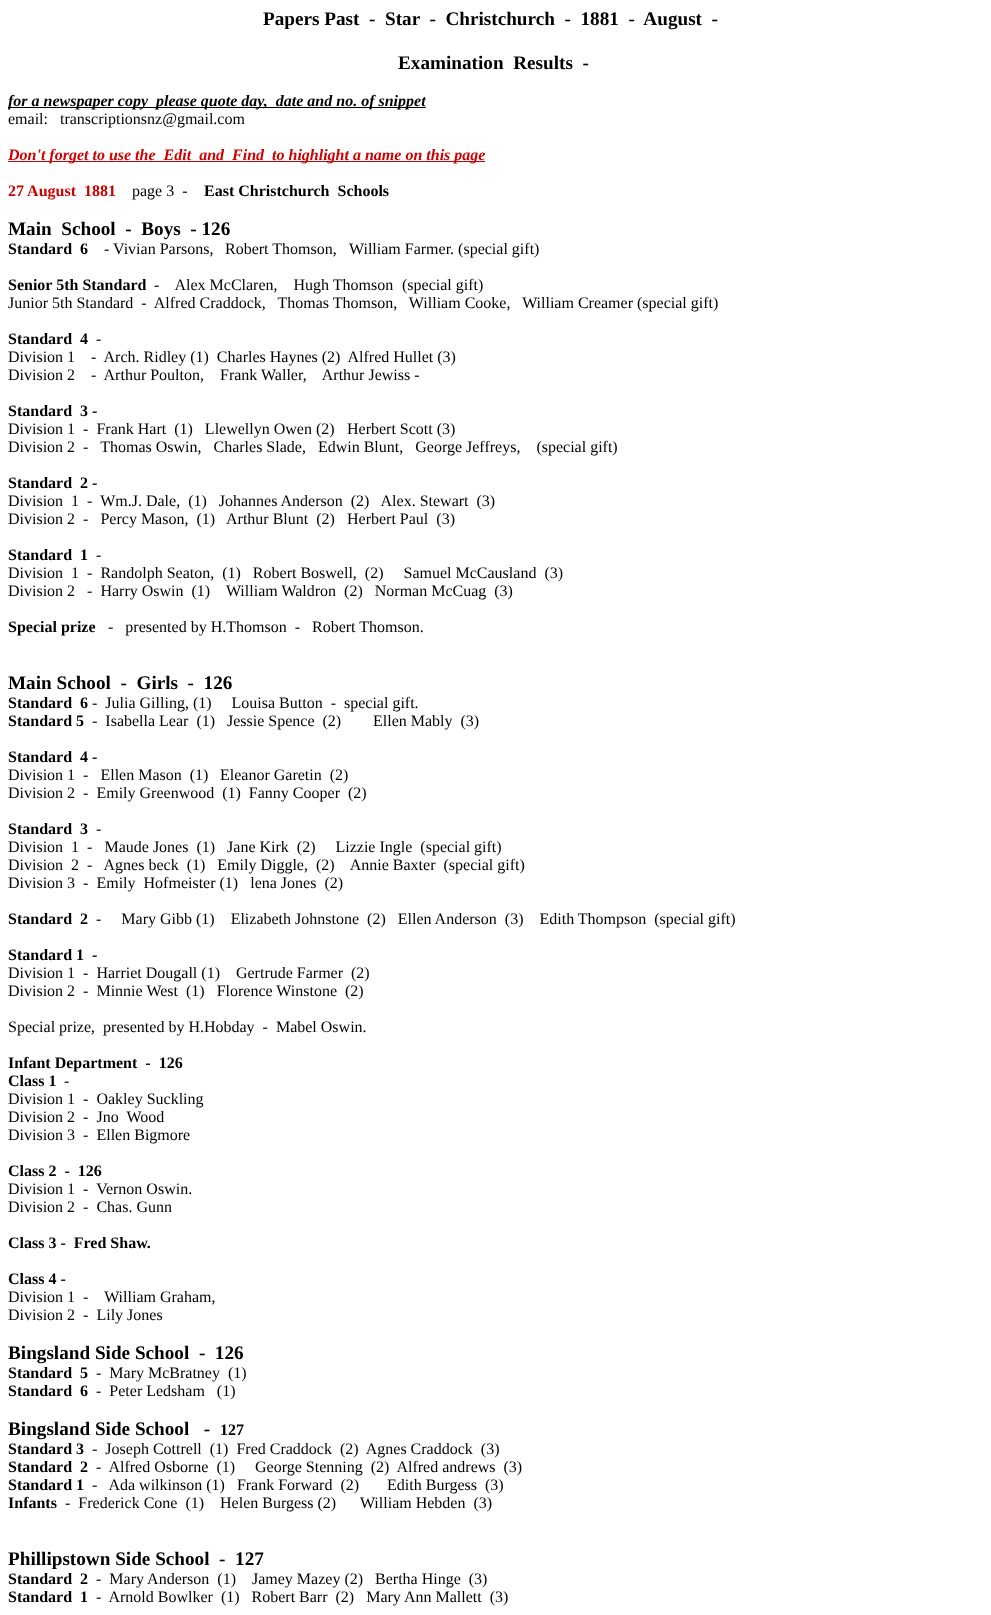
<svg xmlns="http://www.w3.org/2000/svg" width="991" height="1615">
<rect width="100%" height="100%" fill="#fff"/>
<text x="263" y="25" style="font-family:Liberation Serif;font-size:19.2px;font-weight:bold;fill:#000" xml:space="preserve">Papers Past  -  Star  -  Christchurch  -  1881  -  August  -</text>
<text x="398" y="69" style="font-family:Liberation Serif;font-size:19.2px;font-weight:bold;fill:#000" xml:space="preserve">Examination  Results  -</text>
<rect x="8" y="107" width="418" height="1" fill="#000"/>
<text x="8" y="106" style="font-family:Liberation Serif;font-size:16px;font-weight:bold;font-style:italic;fill:#000" xml:space="preserve">for a newspaper copy  please quote day,  date and no. of snippet</text>
<text x="8" y="124" style="font-family:Liberation Serif;font-size:16px;fill:#000" xml:space="preserve">email:   transcriptionsnz@gmail.com</text>
<rect x="8" y="161" width="477" height="1" fill="#c00"/>
<text x="8" y="160" style="font-family:Liberation Serif;font-size:16px;font-weight:bold;font-style:italic;fill:#c00" xml:space="preserve">Don't forget to use the  Edit  and  Find  to highlight a name on this page</text>
<text x="8" y="196" style="font-family:Liberation Serif;font-size:16px;font-weight:bold;fill:#c00" xml:space="preserve">27 August  1881</text>
<text x="132" y="196" style="font-family:Liberation Serif;font-size:16px;fill:#000" xml:space="preserve">page 3  -</text>
<text x="204" y="196" style="font-family:Liberation Serif;font-size:16px;font-weight:bold;fill:#000" xml:space="preserve">East Christchurch  Schools</text>
<text x="8" y="235" style="font-family:Liberation Serif;font-size:19.2px;font-weight:bold;fill:#000" xml:space="preserve">Main  School  -  Boys  - 126</text>
<text x="8" y="254" style="font-family:Liberation Serif;font-size:16px;font-weight:bold;fill:#000" xml:space="preserve">Standard  6</text>
<text x="104" y="254" style="font-family:Liberation Serif;font-size:16px;fill:#000">- Vivian Parsons,</text>
<text x="225" y="254" style="font-family:Liberation Serif;font-size:16px;fill:#000">Robert Thomson,</text>
<text x="349" y="254" style="font-family:Liberation Serif;font-size:16px;fill:#000">William Farmer. (special gift)</text>
<text x="8" y="290" style="font-family:Liberation Serif;font-size:16px;font-weight:bold;fill:#000">Senior 5th Standard</text>
<text x="154" y="290" style="font-family:Liberation Serif;font-size:16px;fill:#000" xml:space="preserve">-    Alex McClaren,    Hugh Thomson</text>
<text x="402" y="290" style="font-family:Liberation Serif;font-size:16px;fill:#000">(special gift)</text>
<text x="8" y="308" style="font-family:Liberation Serif;font-size:16px;fill:#000" xml:space="preserve">Junior 5th Standard  -  Alfred Craddock,   Thomas Thomson,   William Cooke,   William Creamer (special gift)</text>
<text x="8" y="344" style="font-family:Liberation Serif;font-size:16px;font-weight:bold;fill:#000" xml:space="preserve">Standard  4</text>
<text x="96" y="344" style="font-family:Liberation Serif;font-size:16px;fill:#000">-</text>
<text x="8" y="362" style="font-family:Liberation Serif;font-size:16px;fill:#000" xml:space="preserve">Division 1    -  Arch. Ridley (1)  Charles Haynes (2)  Alfred Hullet (3)</text>
<text x="8" y="380" style="font-family:Liberation Serif;font-size:16px;fill:#000" xml:space="preserve">Division 2    -  Arthur Poulton,    Frank Waller,    Arthur Jewiss -</text>
<text x="8" y="416" style="font-family:Liberation Serif;font-size:16px;font-weight:bold;fill:#000" xml:space="preserve">Standard  3 -</text>
<text x="8" y="434" style="font-family:Liberation Serif;font-size:16px;fill:#000" xml:space="preserve">Division 1  -  Frank Hart  (1)   Llewellyn Owen (2)</text>
<text x="347" y="434" style="font-family:Liberation Serif;font-size:16px;fill:#000">Herbert Scott (3)</text>
<text x="8" y="452" style="font-family:Liberation Serif;font-size:16px;fill:#000" xml:space="preserve">Division 2  -   Thomas Oswin,   Charles Slade,   Edwin Blunt,   George Jeffreys,    (special gift)</text>
<text x="8" y="488" style="font-family:Liberation Serif;font-size:16px;font-weight:bold;fill:#000" xml:space="preserve">Standard  2 -</text>
<text x="8" y="506" style="font-family:Liberation Serif;font-size:16px;fill:#000" xml:space="preserve">Division  1  -  Wm.J. Dale,  (1)   Johannes Anderson  (2)   Alex. Stewart  (3)</text>
<text x="8" y="524" style="font-family:Liberation Serif;font-size:16px;fill:#000" xml:space="preserve">Division 2  -   Percy Mason,  (1)</text>
<text x="226" y="524" style="font-family:Liberation Serif;font-size:16px;fill:#000" xml:space="preserve">Arthur Blunt  (2)</text>
<text x="347" y="524" style="font-family:Liberation Serif;font-size:16px;fill:#000" xml:space="preserve">Herbert Paul  (3)</text>
<text x="8" y="560" style="font-family:Liberation Serif;font-size:16px;font-weight:bold;fill:#000" xml:space="preserve">Standard  1</text>
<text x="96" y="560" style="font-family:Liberation Serif;font-size:16px;fill:#000">-</text>
<text x="8" y="578" style="font-family:Liberation Serif;font-size:16px;fill:#000" xml:space="preserve">Division  1  -  Randolph Seaton,  (1)   Robert Boswell,  (2)     Samuel McCausland  (3)</text>
<text x="8" y="596" style="font-family:Liberation Serif;font-size:16px;fill:#000" xml:space="preserve">Division 2   -  Harry Oswin  (1)    William Waldron  (2)   Norman McCuag  (3)</text>
<text x="8" y="632" style="font-family:Liberation Serif;font-size:16px;font-weight:bold;fill:#000">Special prize</text>
<text x="108" y="632" style="font-family:Liberation Serif;font-size:16px;fill:#000" xml:space="preserve">-   presented by H.Thomson  -   Robert Thomson.</text>
<text x="8" y="689" style="font-family:Liberation Serif;font-size:19.2px;font-weight:bold;fill:#000" xml:space="preserve">Main School  -  Girls  -  126</text>
<text x="8" y="708" style="font-family:Liberation Serif;font-size:16px;font-weight:bold;fill:#000" xml:space="preserve">Standard  6</text>
<text x="92" y="708" style="font-family:Liberation Serif;font-size:16px;fill:#000" xml:space="preserve">-  Julia Gilling, (1)     Louisa Button  -  special gift.</text>
<text x="8" y="726" style="font-family:Liberation Serif;font-size:16px;font-weight:bold;fill:#000">Standard 5</text>
<text x="92" y="726" style="font-family:Liberation Serif;font-size:16px;fill:#000" xml:space="preserve">-  Isabella Lear  (1)</text>
<text x="227" y="726" style="font-family:Liberation Serif;font-size:16px;fill:#000" xml:space="preserve">Jessie Spence  (2)</text>
<text x="373" y="726" style="font-family:Liberation Serif;font-size:16px;fill:#000" xml:space="preserve">Ellen Mably  (3)</text>
<text x="8" y="762" style="font-family:Liberation Serif;font-size:16px;font-weight:bold;fill:#000" xml:space="preserve">Standard  4 -</text>
<text x="8" y="780" style="font-family:Liberation Serif;font-size:16px;fill:#000" xml:space="preserve">Division 1  -   Ellen Mason  (1)</text>
<text x="220" y="780" style="font-family:Liberation Serif;font-size:16px;fill:#000" xml:space="preserve">Eleanor Garetin  (2)</text>
<text x="8" y="798" style="font-family:Liberation Serif;font-size:16px;fill:#000" xml:space="preserve">Division 2  -  Emily Greenwood  (1)  Fanny Cooper  (2)</text>
<text x="8" y="834" style="font-family:Liberation Serif;font-size:16px;font-weight:bold;fill:#000" xml:space="preserve">Standard  3</text>
<text x="96" y="834" style="font-family:Liberation Serif;font-size:16px;fill:#000">-</text>
<text x="8" y="852" style="font-family:Liberation Serif;font-size:16px;fill:#000" xml:space="preserve">Division  1  -   Maude Jones  (1)   Jane Kirk  (2)     Lizzie Ingle  (special gift)</text>
<text x="8" y="870" style="font-family:Liberation Serif;font-size:16px;fill:#000" xml:space="preserve">Division  2  -   Agnes beck  (1)   Emily Diggle,  (2)    Annie Baxter  (special gift)</text>
<text x="8" y="888" style="font-family:Liberation Serif;font-size:16px;fill:#000" xml:space="preserve">Division 3  -  Emily  Hofmeister (1)   lena Jones  (2)</text>
<text x="8" y="924" style="font-family:Liberation Serif;font-size:16px;font-weight:bold;fill:#000" xml:space="preserve">Standard  2</text>
<text x="96" y="924" style="font-family:Liberation Serif;font-size:16px;fill:#000" xml:space="preserve">-     Mary Gibb (1)    Elizabeth Johnstone  (2)   Ellen Anderson  (3)    Edith Thompson  (special gift)</text>
<text x="8" y="960" style="font-family:Liberation Serif;font-size:16px;font-weight:bold;fill:#000" xml:space="preserve">Standard 1  -</text>
<text x="8" y="978" style="font-family:Liberation Serif;font-size:16px;fill:#000" xml:space="preserve">Division 1  -  Harriet Dougall (1)    Gertrude Farmer  (2)</text>
<text x="8" y="996" style="font-family:Liberation Serif;font-size:16px;fill:#000" xml:space="preserve">Division 2  -  Minnie West  (1)   Florence Winstone  (2)</text>
<text x="8" y="1032" style="font-family:Liberation Serif;font-size:16px;fill:#000" xml:space="preserve">Special prize,  presented by H.Hobday  -  Mabel Oswin.</text>
<text x="8" y="1068" style="font-family:Liberation Serif;font-size:16px;font-weight:bold;fill:#000" xml:space="preserve">Infant Department  -  126</text>
<text x="8" y="1086" style="font-family:Liberation Serif;font-size:16px;font-weight:bold;fill:#000">Class 1</text>
<text x="64" y="1086" style="font-family:Liberation Serif;font-size:16px;fill:#000">-</text>
<text x="8" y="1104" style="font-family:Liberation Serif;font-size:16px;fill:#000" xml:space="preserve">Division 1  -  Oakley Suckling</text>
<text x="8" y="1122" style="font-family:Liberation Serif;font-size:16px;fill:#000" xml:space="preserve">Division 2  -  Jno  Wood</text>
<text x="8" y="1140" style="font-family:Liberation Serif;font-size:16px;fill:#000" xml:space="preserve">Division 3  -  Ellen Bigmore</text>
<text x="8" y="1176" style="font-family:Liberation Serif;font-size:16px;font-weight:bold;fill:#000" xml:space="preserve">Class 2  -  126</text>
<text x="8" y="1194" style="font-family:Liberation Serif;font-size:16px;fill:#000" xml:space="preserve">Division 1  -  Vernon Oswin.</text>
<text x="8" y="1212" style="font-family:Liberation Serif;font-size:16px;fill:#000" xml:space="preserve">Division 2  -  Chas. Gunn</text>
<text x="8" y="1248" style="font-family:Liberation Serif;font-size:16px;font-weight:bold;fill:#000" xml:space="preserve">Class 3 -  Fred Shaw.</text>
<text x="8" y="1284" style="font-family:Liberation Serif;font-size:16px;font-weight:bold;fill:#000">Class 4 -</text>
<text x="8" y="1302" style="font-family:Liberation Serif;font-size:16px;fill:#000" xml:space="preserve">Division 1  -    William Graham,</text>
<text x="8" y="1320" style="font-family:Liberation Serif;font-size:16px;fill:#000" xml:space="preserve">Division 2  -  Lily Jones</text>
<text x="8" y="1359" style="font-family:Liberation Serif;font-size:19.2px;font-weight:bold;fill:#000" xml:space="preserve">Bingsland Side School  -  126</text>
<text x="8" y="1378" style="font-family:Liberation Serif;font-size:16px;font-weight:bold;fill:#000" xml:space="preserve">Standard  5</text>
<text x="96" y="1378" style="font-family:Liberation Serif;font-size:16px;fill:#000" xml:space="preserve">-  Mary McBratney  (1)</text>
<text x="8" y="1396" style="font-family:Liberation Serif;font-size:16px;font-weight:bold;fill:#000" xml:space="preserve">Standard  6</text>
<text x="96" y="1396" style="font-family:Liberation Serif;font-size:16px;fill:#000" xml:space="preserve">-  Peter Ledsham   (1)</text>
<text x="8" y="1435" style="font-family:Liberation Serif;font-size:19.2px;font-weight:bold;fill:#000" xml:space="preserve">Bingsland Side School   -</text>
<text x="220" y="1435" style="font-family:Liberation Serif;font-size:16px;font-weight:bold;fill:#000">127</text>
<text x="8" y="1454" style="font-family:Liberation Serif;font-size:16px;font-weight:bold;fill:#000">Standard 3</text>
<text x="92" y="1454" style="font-family:Liberation Serif;font-size:16px;fill:#000" xml:space="preserve">-  Joseph Cottrell  (1)  Fred Craddock  (2)  Agnes Craddock  (3)</text>
<text x="8" y="1472" style="font-family:Liberation Serif;font-size:16px;font-weight:bold;fill:#000" xml:space="preserve">Standard  2</text>
<text x="96" y="1472" style="font-family:Liberation Serif;font-size:16px;fill:#000" xml:space="preserve">-  Alfred Osborne  (1)</text>
<text x="255" y="1472" style="font-family:Liberation Serif;font-size:16px;fill:#000" xml:space="preserve">George Stenning  (2)  Alfred andrews  (3)</text>
<text x="8" y="1490" style="font-family:Liberation Serif;font-size:16px;font-weight:bold;fill:#000">Standard 1</text>
<text x="92" y="1490" style="font-family:Liberation Serif;font-size:16px;fill:#000" xml:space="preserve">-   Ada wilkinson (1)   Frank Forward  (2)       Edith Burgess  (3)</text>
<text x="8" y="1508" style="font-family:Liberation Serif;font-size:16px;font-weight:bold;fill:#000">Infants</text>
<text x="65" y="1508" style="font-family:Liberation Serif;font-size:16px;fill:#000" xml:space="preserve">-  Frederick Cone  (1)    Helen Burgess (2)      William Hebden  (3)</text>
<text x="8" y="1565" style="font-family:Liberation Serif;font-size:19.2px;font-weight:bold;fill:#000" xml:space="preserve">Phillipstown Side School  -  127</text>
<text x="8" y="1584" style="font-family:Liberation Serif;font-size:16px;font-weight:bold;fill:#000" xml:space="preserve">Standard  2</text>
<text x="96" y="1584" style="font-family:Liberation Serif;font-size:16px;fill:#000" xml:space="preserve">-  Mary Anderson  (1)    Jamey Mazey (2)   Bertha Hinge  (3)</text>
<text x="8" y="1602" style="font-family:Liberation Serif;font-size:16px;font-weight:bold;fill:#000" xml:space="preserve">Standard  1</text>
<text x="96" y="1602" style="font-family:Liberation Serif;font-size:16px;fill:#000" xml:space="preserve">-  Arnold Bowlker  (1)   Robert Barr  (2)   Mary Ann Mallett  (3)</text>
</svg>
